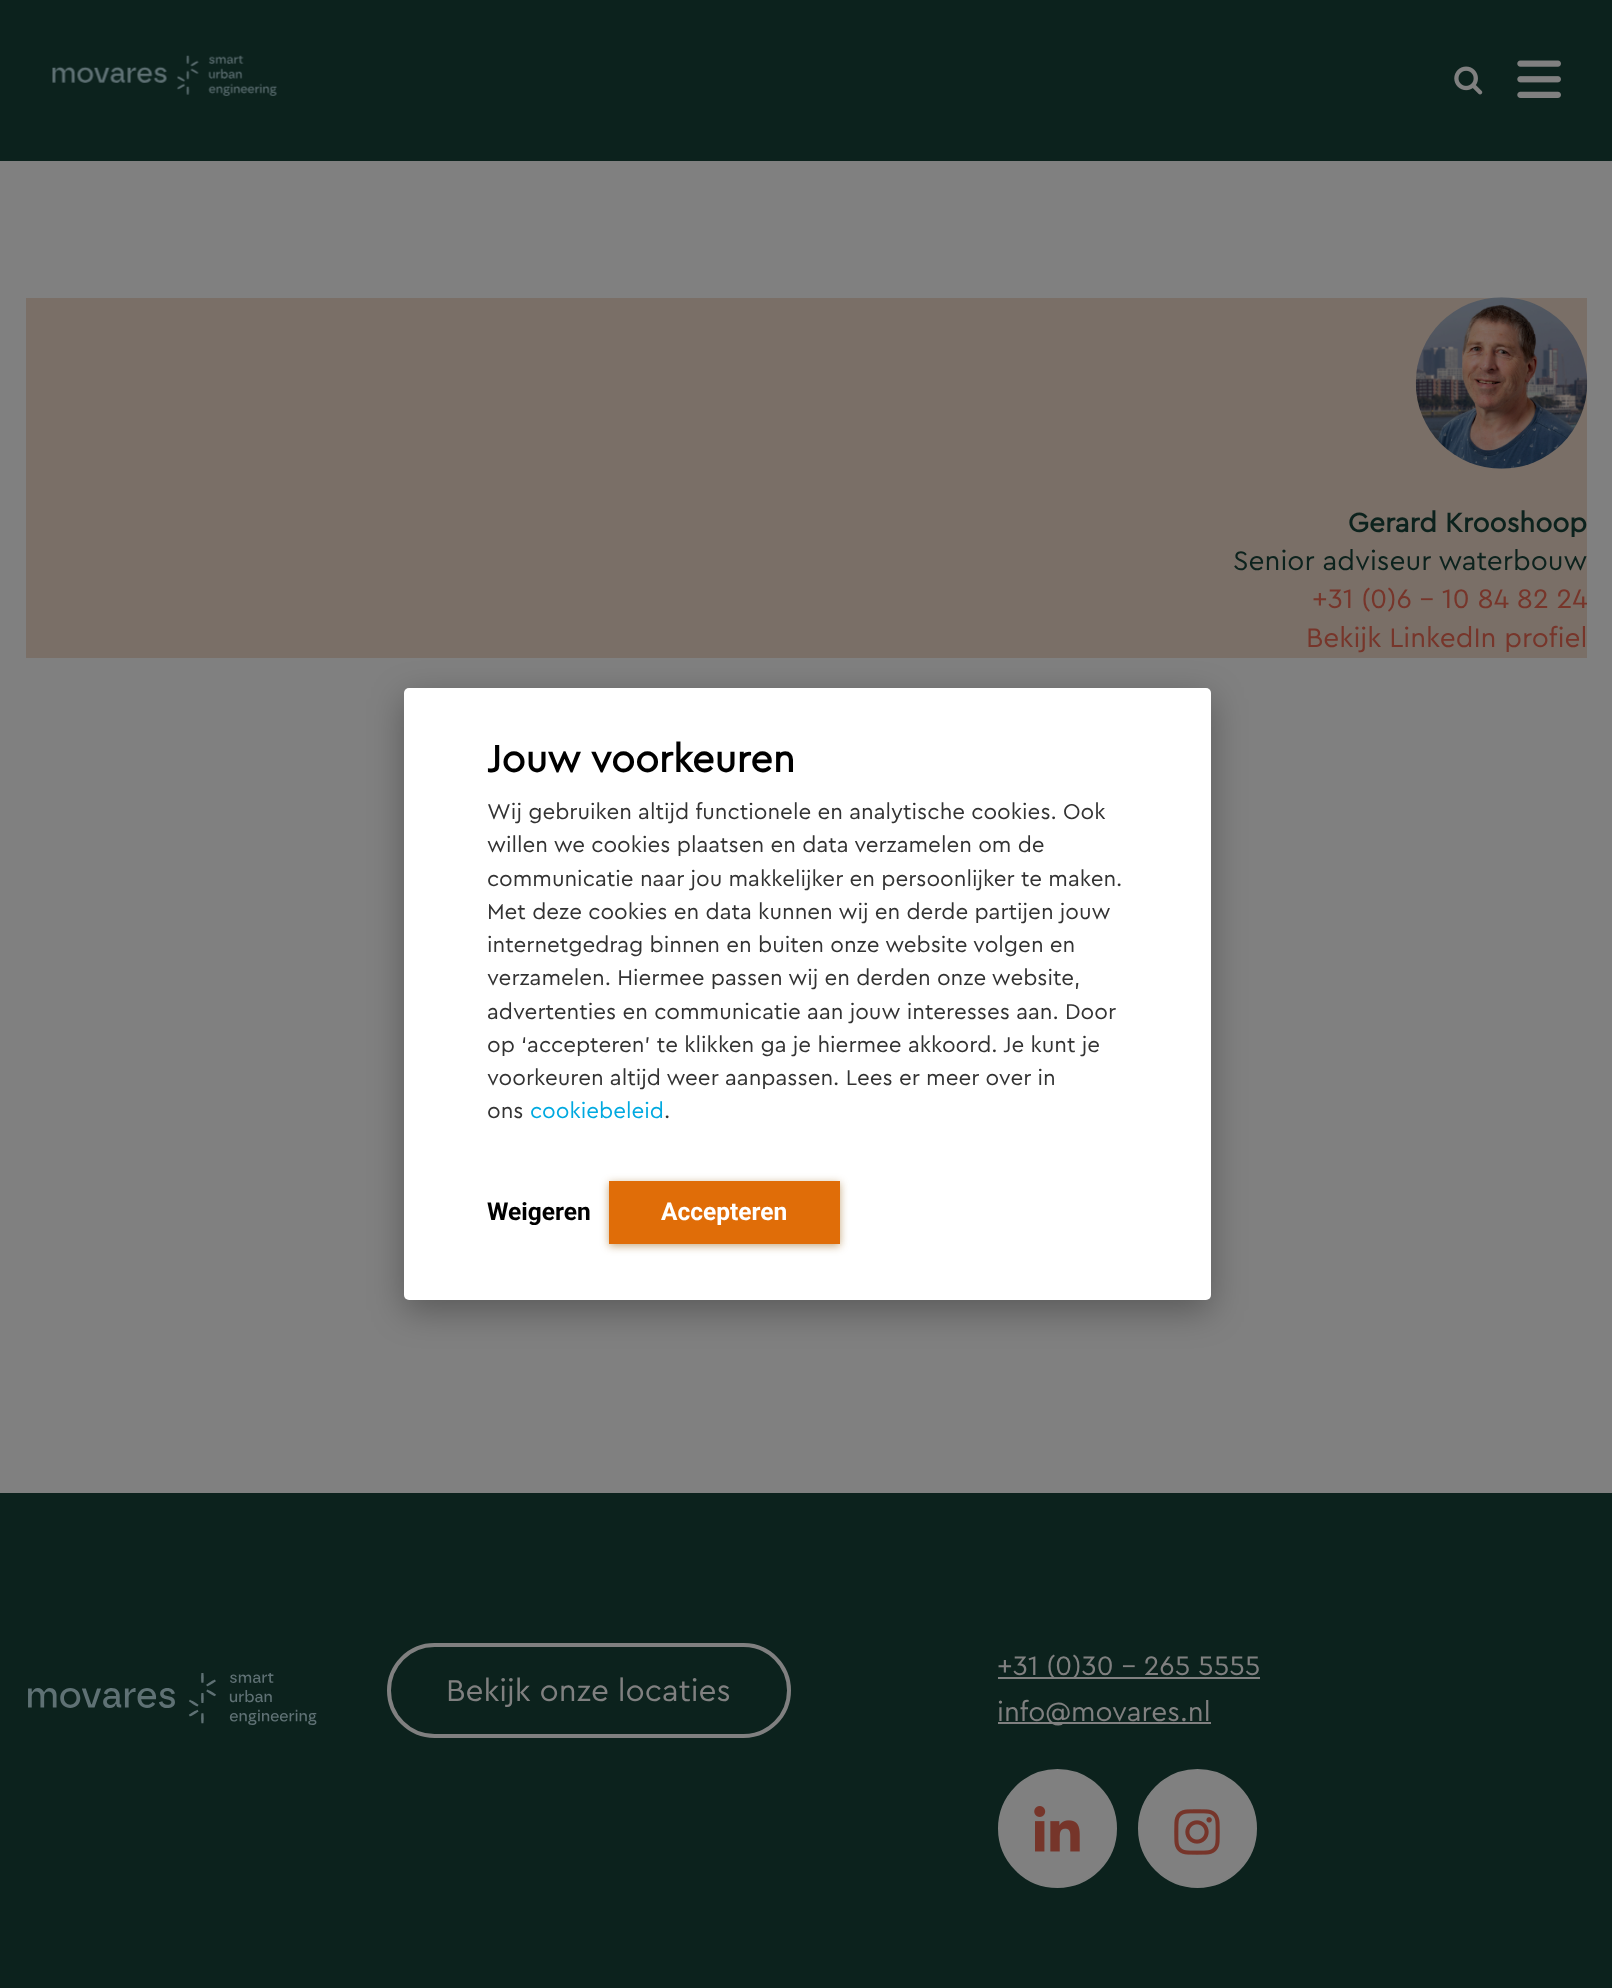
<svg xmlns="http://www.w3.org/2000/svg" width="1612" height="1988">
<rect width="100%" height="100%" fill="#808080"/>
<rect width="1612" height="161" fill="#0c221d"/>
<image x="52" y="55" width="225" height="41" href="media/1.png"/>
<image x="1454" y="66" width="29" height="29" href="media/2.png"/>
<image x="1517" y="60" width="44" height="38" href="media/3.png"/>
<rect x="26" y="298" width="1561" height="360" fill="#7a6f67"/>
<image x="1415" y="297" width="173" height="172" href="media/4.png"/>
<text x="1348" y="532" style="font-family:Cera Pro;font-size:28px;font-weight:bold;fill:#0c221d">Gerard Krooshoop</text>
<text x="1233" y="570" style="font-family:Cera Pro;font-size:28px;fill:#0c221d">Senior adviseur waterbouw</text>
<text x="1312" y="608" style="font-family:Cera Pro;font-size:28px;fill:#77352a">+31 (0)6 - 10 84 82 24</text>
<text x="1306" y="647" style="font-family:Cera Pro;font-size:28px;fill:#77352a">Bekijk LinkedIn profiel</text>
<rect x="404" y="698" width="807" height="613" rx="5" fill="#0000004d" filter="blur(17.5px)"/>
<rect x="404" y="688" width="807" height="612" rx="5" fill="#fff"/>
<text x="487" y="772" style="font-family:Cera Pro;font-size:39.25px;font-weight:bold;fill:#000">Jouw voorkeuren</text>
<text x="487" y="819" style="font-family:Cera Pro;font-size:22.4px;fill:#333">Wij gebruiken altijd functionele en analytische cookies. Ook</text>
<text x="487" y="852" style="font-family:Cera Pro;font-size:22.4px;fill:#333">willen we cookies plaatsen en data verzamelen om de</text>
<text x="487" y="886" style="font-family:Cera Pro;font-size:22.4px;fill:#333">communicatie naar jou makkelijker en persoonlijker te maken.</text>
<text x="487" y="919" style="font-family:Cera Pro;font-size:22.4px;fill:#333">Met deze cookies en data kunnen wij en derde partijen jouw</text>
<text x="487" y="952" style="font-family:Cera Pro;font-size:22.4px;fill:#333">internetgedrag binnen en buiten onze website volgen en</text>
<text x="487" y="985" style="font-family:Cera Pro;font-size:22.4px;fill:#333">verzamelen. Hiermee passen wij en derden onze website,</text>
<text x="487" y="1019" style="font-family:Cera Pro;font-size:22.4px;fill:#333">advertenties en communicatie aan jouw interesses aan. Door</text>
<text x="487" y="1052" style="font-family:Cera Pro;font-size:22.4px;fill:#333">op ‘accepteren’ te klikken ga je hiermee akkoord. Je kunt je</text>
<text x="487" y="1085" style="font-family:Cera Pro;font-size:22.4px;fill:#333">voorkeuren altijd weer aanpassen. Lees er meer over in</text>
<text x="487" y="1118" style="font-family:Cera Pro;font-size:22.4px;fill:#333">ons</text>
<text x="530" y="1118" style="font-family:Cera Pro;font-size:22.4px;fill:#00a9e0">cookiebeleid</text>
<text x="664" y="1118" style="font-family:Cera Pro;font-size:22.4px;fill:#333">.</text>
<text x="487" y="1220" style="font-family:Roboto;font-size:24.5px;font-weight:bold;fill:#000">Weigeren</text>
<rect x="609" y="1183" width="231" height="63" fill="#8b530080" filter="blur(4.5px)"/>
<rect x="609" y="1181" width="231" height="63" fill="#e06d08"/>
<text x="661" y="1220" style="font-family:Roboto;font-size:24.5px;font-weight:bold;fill:#fff">Accepteren</text>
<rect y="1493" width="1612" height="495" fill="#0c221d"/>
<image x="28" y="1673" width="289" height="52" href="media/5.png"/>
<rect x="389" y="1645" width="400" height="91" rx="45.5" fill="none" stroke="#808080" stroke-width="4"/>
<text x="446" y="1701" style="font-family:Cera Pro;font-size:31.5px;fill:#808080">Bekijk onze locaties</text>
<rect x="998" y="1677" width="262" height="2" fill="#808080"/>
<text x="997" y="1675" style="font-family:Cera Pro;font-size:28px;fill:#808080">+31 (0)30 - 265 5555</text>
<rect x="998" y="1722" width="213" height="2" fill="#808080"/>
<text x="997" y="1721" style="font-family:Cera Pro;font-size:28px;fill:#808080">info@movares.nl</text>
<circle cx="1057.5" cy="1828.5" r="58.5" fill="#808080" stroke="#808080" stroke-width="2"/>
<image x="1034" y="1806" width="46" height="46" href="media/6.png"/>
<circle cx="1197.5" cy="1828.5" r="58.5" fill="#808080" stroke="#808080" stroke-width="2"/>
<image x="1174" y="1809" width="46" height="46" href="media/7.png"/>
</svg>
